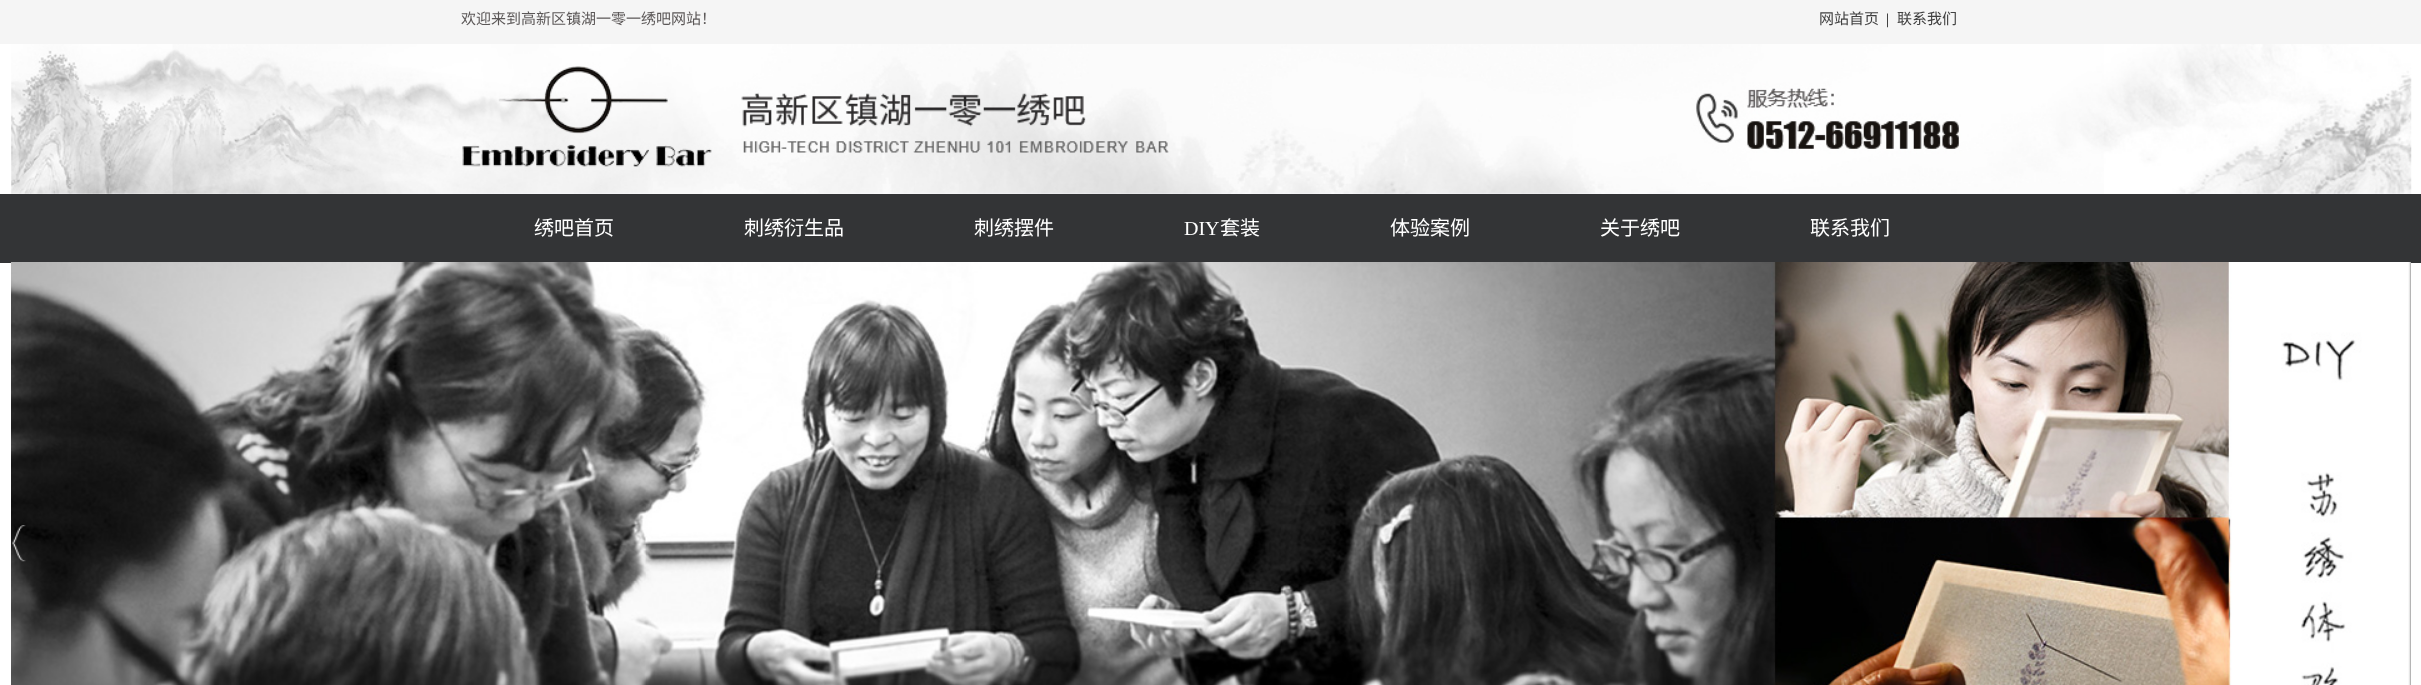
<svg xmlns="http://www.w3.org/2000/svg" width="2421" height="685">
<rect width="100%" height="100%" fill="#fff"/>
<rect width="2421" height="44" fill="#f5f5f5"/>
<text x="461" y="24" style="font-family:Noto Sans CJK SC;font-size:15px;fill:#5b5757">欢迎来到高新区镇湖一零一绣吧网站！</text>
<text x="1819" y="24" style="font-family:Noto Sans CJK SC;font-size:15px;fill:#414141">网站首页</text>
<text x="1886" y="24" style="font-family:Liberation Serif;font-size:15px;fill:#000">|</text>
<text x="1897" y="24" style="font-family:Noto Sans CJK SC;font-size:15px;fill:#414141">联系我们</text>
<image x="11" y="44" width="2401" height="150" href="media/1.png"/>
<rect y="194" width="2421" height="69" fill="#333436"/>
<text x="534" y="235" style="font-family:Noto Sans CJK SC;font-size:20px;fill:#fff">绣吧首页</text>
<text x="744" y="235" style="font-family:Noto Sans CJK SC;font-size:20px;fill:#fff">刺绣衍生品</text>
<text x="974" y="235" style="font-family:Noto Sans CJK SC;font-size:20px;fill:#fff">刺绣摆件</text>
<text x="1184" y="235" style="font-family:Liberation Serif;font-size:20px;fill:#fff">DIY</text>
<text x="1220" y="235" style="font-family:Noto Sans CJK SC;font-size:20px;fill:#fff">套装</text>
<text x="1390" y="235" style="font-family:Noto Sans CJK SC;font-size:20px;fill:#fff">体验案例</text>
<text x="1600" y="235" style="font-family:Noto Sans CJK SC;font-size:20px;fill:#fff">关于绣吧</text>
<text x="1810" y="235" style="font-family:Noto Sans CJK SC;font-size:20px;fill:#fff">联系我们</text>
<image x="11" y="262" width="2400" height="423" href="media/2.png"/>
<image x="12" y="525" width="14" height="37" href="media/3.png"/>
</svg>
